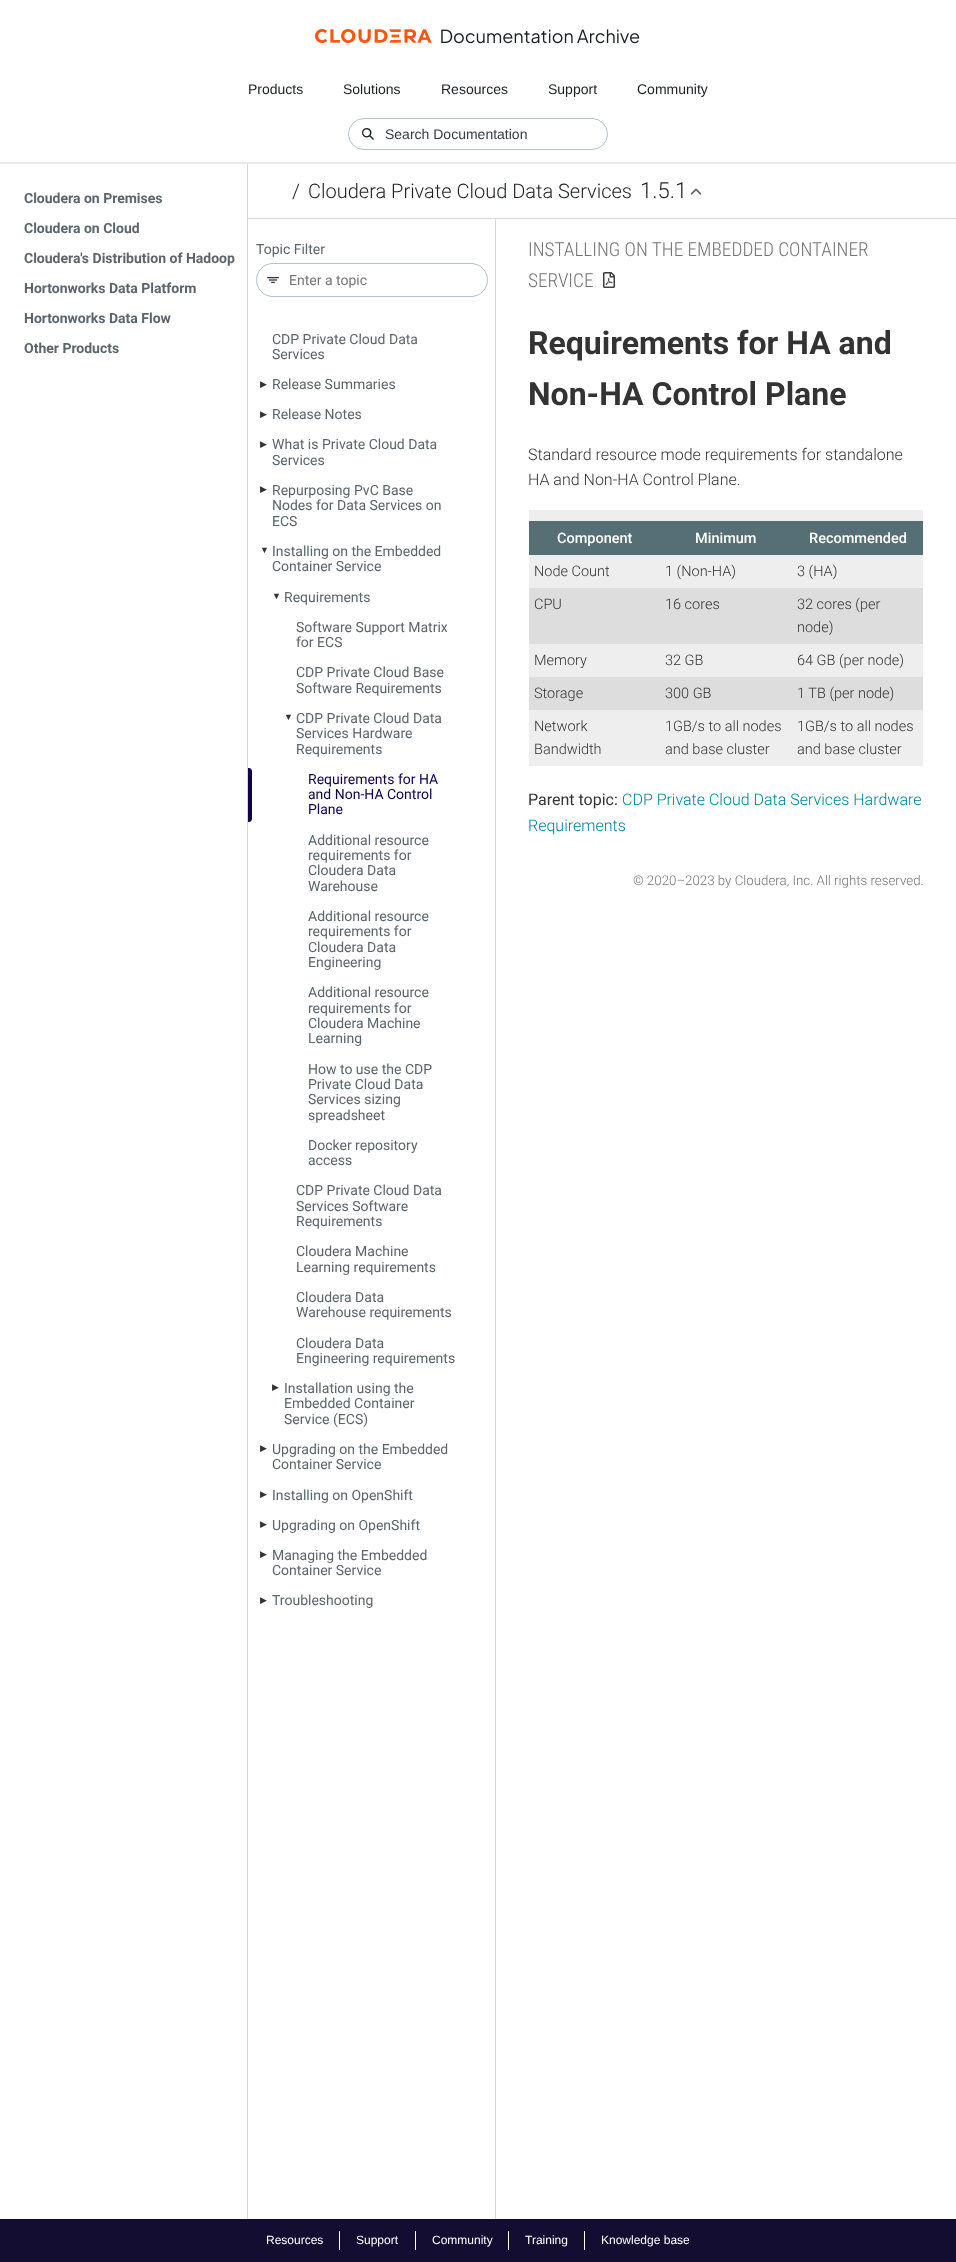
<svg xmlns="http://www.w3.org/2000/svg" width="956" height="2262">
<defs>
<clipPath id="clip1"><rect x="248" y="218" width="248" height="2001"/></clipPath>
</defs>
<rect width="100%" height="100%" fill="#fff"/>
<rect y="162" width="956" height="2" fill="#e5ecf1"/>
<image x="315" y="29" width="325" height="15" href="media/1.png"/>
<text x="248" y="94" style="font-family:Liberation Sans;font-size:14px;fill:#1a2024">Products</text>
<text x="343" y="94" style="font-family:Liberation Sans;font-size:14px;fill:#1a2024">Solutions</text>
<text x="441" y="94" style="font-family:Liberation Sans;font-size:14px;fill:#1a2024">Resources</text>
<text x="548" y="94" style="font-family:Liberation Sans;font-size:14px;fill:#1a2024">Support</text>
<text x="637" y="94" style="font-family:Liberation Sans;font-size:14px;fill:#1a2024">Community</text>
<rect x="348.5" y="118.5" width="259" height="31" rx="15.5" fill="none" stroke="#afc4d2"/>
<image x="362" y="128" width="12" height="12" href="media/2.png"/>
<text x="385" y="139" style="font-family:Liberation Sans;font-size:14px;fill:#333d43">Search Documentation</text>
<rect x="247" y="164" width="1" height="2055" fill="#d6d8db"/>
<text x="24" y="203" style="font-family:Roboto;font-size:14px;font-weight:bold;fill:#5a656d">Cloudera on Premises</text>
<text x="24" y="233" style="font-family:Roboto;font-size:14px;font-weight:bold;fill:#5a656d">Cloudera on Cloud</text>
<text x="24" y="263" style="font-family:Roboto;font-size:14px;font-weight:bold;fill:#5a656d">Cloudera's Distribution of Hadoop</text>
<text x="24" y="293" style="font-family:Roboto;font-size:14px;font-weight:bold;fill:#5a656d">Hortonworks Data Platform</text>
<text x="24" y="323" style="font-family:Roboto;font-size:14px;font-weight:bold;fill:#5a656d">Hortonworks Data Flow</text>
<text x="24" y="353" style="font-family:Roboto;font-size:14px;font-weight:bold;fill:#5a656d">Other Products</text>
<rect x="496" y="218" width="460" height="1" fill="#d6d8db"/>
<text x="292" y="198" style="font-family:Roboto;font-size:20px;font-weight:300;fill:#1a2024">/</text>
<text x="308" y="198" style="font-family:Roboto;font-size:20px;font-weight:300;fill:#1a2024">Cloudera Private Cloud Data Services</text>
<text x="640" y="198" style="font-family:Roboto;font-size:22px;font-weight:300;fill:#1a2024">1.5.1</text>
<image x="690" y="188" width="12" height="7" href="media/3.png"/>
<text x="528" y="256" style="font-family:Roboto Condensed;font-size:19.25px;font-weight:300;fill:#757575">INSTALLING ON THE EMBEDDED CONTAINER</text>
<text x="528" y="287" style="font-family:Roboto Condensed;font-size:19.25px;font-weight:300;fill:#757575">SERVICE</text>
<image x="603" y="272" width="12" height="16" href="media/4.png"/>
<text x="528" y="354" style="font-family:Roboto;font-size:32px;font-weight:bold;fill:#333">Requirements for HA and</text>
<text x="528" y="405" style="font-family:Roboto;font-size:32px;font-weight:bold;fill:#333">Non-HA Control Plane</text>
<text x="528" y="460" style="font-family:Roboto;font-size:16px;font-weight:300;fill:#333">Standard resource mode requirements for standalone</text>
<text x="528" y="485" style="font-family:Roboto;font-size:16px;font-weight:300;fill:#333">HA and Non-HA Control Plane.</text>
<rect x="529" y="510" width="394" height="256" fill="#eee"/>
<rect x="529" y="521" width="394" height="34" fill="#556f74"/>
<text x="557" y="543" style="font-family:Roboto;font-size:14.5px;font-weight:500;fill:#fff">Component</text>
<text x="695" y="543" style="font-family:Roboto;font-size:14.5px;font-weight:500;fill:#fff">Minimum</text>
<text x="809" y="543" style="font-family:Roboto;font-size:14.5px;font-weight:500;fill:#fff">Recommended</text>
<text x="534" y="576" style="font-family:Roboto;font-size:14.5px;font-weight:300;fill:#333">Node Count</text>
<text x="665" y="576" style="font-family:Roboto;font-size:14.5px;font-weight:300;fill:#333">1 (Non-HA)</text>
<text x="797" y="576" style="font-family:Roboto;font-size:14.5px;font-weight:300;fill:#333">3 (HA)</text>
<rect x="529" y="588" width="394" height="56" fill="#ddd"/>
<text x="534" y="609" style="font-family:Roboto;font-size:14.5px;font-weight:300;fill:#333">CPU</text>
<text x="665" y="609" style="font-family:Roboto;font-size:14.5px;font-weight:300;fill:#333">16 cores</text>
<text x="797" y="609" style="font-family:Roboto;font-size:14.5px;font-weight:300;fill:#333">32 cores (per</text>
<text x="797" y="632" style="font-family:Roboto;font-size:14.5px;font-weight:300;fill:#333">node)</text>
<text x="534" y="665" style="font-family:Roboto;font-size:14.5px;font-weight:300;fill:#333">Memory</text>
<text x="665" y="665" style="font-family:Roboto;font-size:14.5px;font-weight:300;fill:#333">32 GB</text>
<text x="797" y="665" style="font-family:Roboto;font-size:14.5px;font-weight:300;fill:#333">64 GB (per node)</text>
<rect x="529" y="677" width="394" height="33" fill="#ddd"/>
<text x="534" y="698" style="font-family:Roboto;font-size:14.5px;font-weight:300;fill:#333">Storage</text>
<text x="665" y="698" style="font-family:Roboto;font-size:14.5px;font-weight:300;fill:#333">300 GB</text>
<text x="797" y="698" style="font-family:Roboto;font-size:14.5px;font-weight:300;fill:#333">1 TB (per node)</text>
<text x="534" y="731" style="font-family:Roboto;font-size:14.5px;font-weight:300;fill:#333">Network</text>
<text x="534" y="754" style="font-family:Roboto;font-size:14.5px;font-weight:300;fill:#333">Bandwidth</text>
<text x="665" y="731" style="font-family:Roboto;font-size:14.5px;font-weight:300;fill:#333">1GB/s to all nodes</text>
<text x="665" y="754" style="font-family:Roboto;font-size:14.5px;font-weight:300;fill:#333">and base cluster</text>
<text x="797" y="731" style="font-family:Roboto;font-size:14.5px;font-weight:300;fill:#333">1GB/s to all nodes</text>
<text x="797" y="754" style="font-family:Roboto;font-size:14.5px;font-weight:300;fill:#333">and base cluster</text>
<text x="528" y="805" style="font-family:Roboto;font-size:16px;fill:#333">Parent topic:</text>
<text x="622" y="805" style="font-family:Roboto;font-size:16px;font-weight:300;fill:#008295">CDP Private Cloud Data Services Hardware</text>
<text x="528" y="831" style="font-family:Roboto;font-size:16px;font-weight:300;fill:#008295">Requirements</text>
<text x="633" y="885" style="font-family:Roboto;font-size:13.3px;font-weight:300;fill:#757575">© 2020–2023 by Cloudera, Inc. All rights reserved.</text>
<g clip-path="url(#clip1)">
<path d="M149 119h446v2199h-446zm98 100h248v2001h-248z" fill="#d6d8db" fill-rule="evenodd"/>
</g>
<text x="256" y="254" style="font-family:Roboto;font-size:14px;fill:#5a656d">Topic Filter</text>
<rect x="256.5" y="263.5" width="231" height="33" rx="16.5" fill="none" stroke="#afc4d2"/>
<image x="267" y="277" width="12" height="6" href="media/5.png"/>
<text x="289" y="285" style="font-family:Roboto;font-size:14px;fill:#757575">Enter a topic</text>
<text x="272" y="344" style="font-family:Roboto;font-size:14px;fill:#5a656d">CDP Private Cloud Data</text>
<text x="272" y="359" style="font-family:Roboto;font-size:14px;fill:#5a656d">Services</text>
<text x="260" y="387" style="font-family:DejaVu Sans;font-size:9px;fill:#333">▶︎</text>
<text x="272" y="389" style="font-family:Roboto;font-size:14px;fill:#5a656d">Release Summaries</text>
<text x="260" y="417" style="font-family:DejaVu Sans;font-size:9px;fill:#333">▶︎</text>
<text x="272" y="419" style="font-family:Roboto;font-size:14px;fill:#5a656d">Release Notes</text>
<text x="260" y="447" style="font-family:DejaVu Sans;font-size:9px;fill:#333">▶︎</text>
<text x="272" y="449" style="font-family:Roboto;font-size:14px;fill:#5a656d">What is Private Cloud Data</text>
<text x="272" y="465" style="font-family:Roboto;font-size:14px;fill:#5a656d">Services</text>
<text x="260" y="492" style="font-family:DejaVu Sans;font-size:9px;fill:#333">▶︎</text>
<text x="272" y="495" style="font-family:Roboto;font-size:14px;fill:#5a656d">Repurposing PvC Base</text>
<text x="272" y="510" style="font-family:Roboto;font-size:14px;fill:#5a656d">Nodes for Data Services on</text>
<text x="272" y="526" style="font-family:Roboto;font-size:14px;fill:#5a656d">ECS</text>
<text x="260" y="553" style="font-family:Liberation Sans;font-size:9px;fill:#333">▼</text>
<text x="272" y="556" style="font-family:Roboto;font-size:14px;fill:#5a656d">Installing on the Embedded</text>
<text x="272" y="571" style="font-family:Roboto;font-size:14px;fill:#5a656d">Container Service</text>
<text x="272" y="599" style="font-family:Liberation Sans;font-size:9px;fill:#333">▼</text>
<text x="284" y="602" style="font-family:Roboto;font-size:14px;fill:#5a656d">Requirements</text>
<text x="296" y="632" style="font-family:Roboto;font-size:14px;fill:#5a656d">Software Support Matrix</text>
<text x="296" y="647" style="font-family:Roboto;font-size:14px;fill:#5a656d">for ECS</text>
<text x="296" y="677" style="font-family:Roboto;font-size:14px;fill:#5a656d">CDP Private Cloud Base</text>
<text x="296" y="693" style="font-family:Roboto;font-size:14px;fill:#5a656d">Software Requirements</text>
<text x="284" y="720" style="font-family:Liberation Sans;font-size:9px;fill:#333">▼</text>
<text x="296" y="723" style="font-family:Roboto;font-size:14px;fill:#5a656d">CDP Private Cloud Data</text>
<text x="296" y="738" style="font-family:Roboto;font-size:14px;fill:#5a656d">Services Hardware</text>
<text x="296" y="754" style="font-family:Roboto;font-size:14px;fill:#5a656d">Requirements</text>
<path d="M248 768h1c1.5 0 3 1.5 3 3v48c0 1.5-1.5 3-3 3h-1z" fill="#120046"/>
<text x="308" y="784" style="font-family:Roboto;font-size:14px;fill:#120046">Requirements for HA</text>
<text x="308" y="799" style="font-family:Roboto;font-size:14px;fill:#120046">and Non-HA Control</text>
<text x="308" y="814" style="font-family:Roboto;font-size:14px;fill:#120046">Plane</text>
<text x="308" y="845" style="font-family:Roboto;font-size:14px;fill:#5a656d">Additional resource</text>
<text x="308" y="860" style="font-family:Roboto;font-size:14px;fill:#5a656d">requirements for</text>
<text x="308" y="875" style="font-family:Roboto;font-size:14px;fill:#5a656d">Cloudera Data</text>
<text x="308" y="891" style="font-family:Roboto;font-size:14px;fill:#5a656d">Warehouse</text>
<text x="308" y="921" style="font-family:Roboto;font-size:14px;fill:#5a656d">Additional resource</text>
<text x="308" y="936" style="font-family:Roboto;font-size:14px;fill:#5a656d">requirements for</text>
<text x="308" y="952" style="font-family:Roboto;font-size:14px;fill:#5a656d">Cloudera Data</text>
<text x="308" y="967" style="font-family:Roboto;font-size:14px;fill:#5a656d">Engineering</text>
<text x="308" y="997" style="font-family:Roboto;font-size:14px;fill:#5a656d">Additional resource</text>
<text x="308" y="1013" style="font-family:Roboto;font-size:14px;fill:#5a656d">requirements for</text>
<text x="308" y="1028" style="font-family:Roboto;font-size:14px;fill:#5a656d">Cloudera Machine</text>
<text x="308" y="1043" style="font-family:Roboto;font-size:14px;fill:#5a656d">Learning</text>
<text x="308" y="1074" style="font-family:Roboto;font-size:14px;fill:#5a656d">How to use the CDP</text>
<text x="308" y="1089" style="font-family:Roboto;font-size:14px;fill:#5a656d">Private Cloud Data</text>
<text x="308" y="1104" style="font-family:Roboto;font-size:14px;fill:#5a656d">Services sizing</text>
<text x="308" y="1120" style="font-family:Roboto;font-size:14px;fill:#5a656d">spreadsheet</text>
<text x="308" y="1150" style="font-family:Roboto;font-size:14px;fill:#5a656d">Docker repository</text>
<text x="308" y="1165" style="font-family:Roboto;font-size:14px;fill:#5a656d">access</text>
<text x="296" y="1195" style="font-family:Roboto;font-size:14px;fill:#5a656d">CDP Private Cloud Data</text>
<text x="296" y="1211" style="font-family:Roboto;font-size:14px;fill:#5a656d">Services Software</text>
<text x="296" y="1226" style="font-family:Roboto;font-size:14px;fill:#5a656d">Requirements</text>
<text x="296" y="1256" style="font-family:Roboto;font-size:14px;fill:#5a656d">Cloudera Machine</text>
<text x="296" y="1272" style="font-family:Roboto;font-size:14px;fill:#5a656d">Learning requirements</text>
<text x="296" y="1302" style="font-family:Roboto;font-size:14px;fill:#5a656d">Cloudera Data</text>
<text x="296" y="1317" style="font-family:Roboto;font-size:14px;fill:#5a656d">Warehouse requirements</text>
<text x="296" y="1348" style="font-family:Roboto;font-size:14px;fill:#5a656d">Cloudera Data</text>
<text x="296" y="1363" style="font-family:Roboto;font-size:14px;fill:#5a656d">Engineering requirements</text>
<text x="272" y="1390" style="font-family:DejaVu Sans;font-size:9px;fill:#333">▶︎</text>
<text x="284" y="1393" style="font-family:Roboto;font-size:14px;fill:#5a656d">Installation using the</text>
<text x="284" y="1408" style="font-family:Roboto;font-size:14px;fill:#5a656d">Embedded Container</text>
<text x="284" y="1424" style="font-family:Roboto;font-size:14px;fill:#5a656d">Service (ECS)</text>
<text x="260" y="1451" style="font-family:DejaVu Sans;font-size:9px;fill:#333">▶︎</text>
<text x="272" y="1454" style="font-family:Roboto;font-size:14px;fill:#5a656d">Upgrading on the Embedded</text>
<text x="272" y="1469" style="font-family:Roboto;font-size:14px;fill:#5a656d">Container Service</text>
<text x="260" y="1497" style="font-family:DejaVu Sans;font-size:9px;fill:#333">▶︎</text>
<text x="272" y="1500" style="font-family:Roboto;font-size:14px;fill:#5a656d">Installing on OpenShift</text>
<text x="260" y="1527" style="font-family:DejaVu Sans;font-size:9px;fill:#333">▶︎</text>
<text x="272" y="1530" style="font-family:Roboto;font-size:14px;fill:#5a656d">Upgrading on OpenShift</text>
<text x="260" y="1557" style="font-family:DejaVu Sans;font-size:9px;fill:#333">▶︎</text>
<text x="272" y="1560" style="font-family:Roboto;font-size:14px;fill:#5a656d">Managing the Embedded</text>
<text x="272" y="1575" style="font-family:Roboto;font-size:14px;fill:#5a656d">Container Service</text>
<text x="260" y="1603" style="font-family:DejaVu Sans;font-size:9px;fill:#333">▶︎</text>
<text x="272" y="1605" style="font-family:Roboto;font-size:14px;fill:#5a656d">Troubleshooting</text>
<rect y="2219" width="956" height="43" fill="#130d32"/>
<rect x="339" y="2231" width="1" height="19" fill="#fff"/>
<text x="266" y="2244" style="font-family:Liberation Sans;font-size:12px;fill:#fff">Resources</text>
<rect x="415" y="2231" width="1" height="19" fill="#fff"/>
<text x="356" y="2244" style="font-family:Liberation Sans;font-size:12px;fill:#fff">Support</text>
<rect x="508" y="2231" width="1" height="19" fill="#fff"/>
<text x="432" y="2244" style="font-family:Liberation Sans;font-size:12px;fill:#fff">Community</text>
<rect x="584" y="2231" width="1" height="19" fill="#fff"/>
<text x="525" y="2244" style="font-family:Liberation Sans;font-size:12px;fill:#fff">Training</text>
<text x="601" y="2244" style="font-family:Liberation Sans;font-size:12px;fill:#fff">Knowledge base</text>
</svg>
